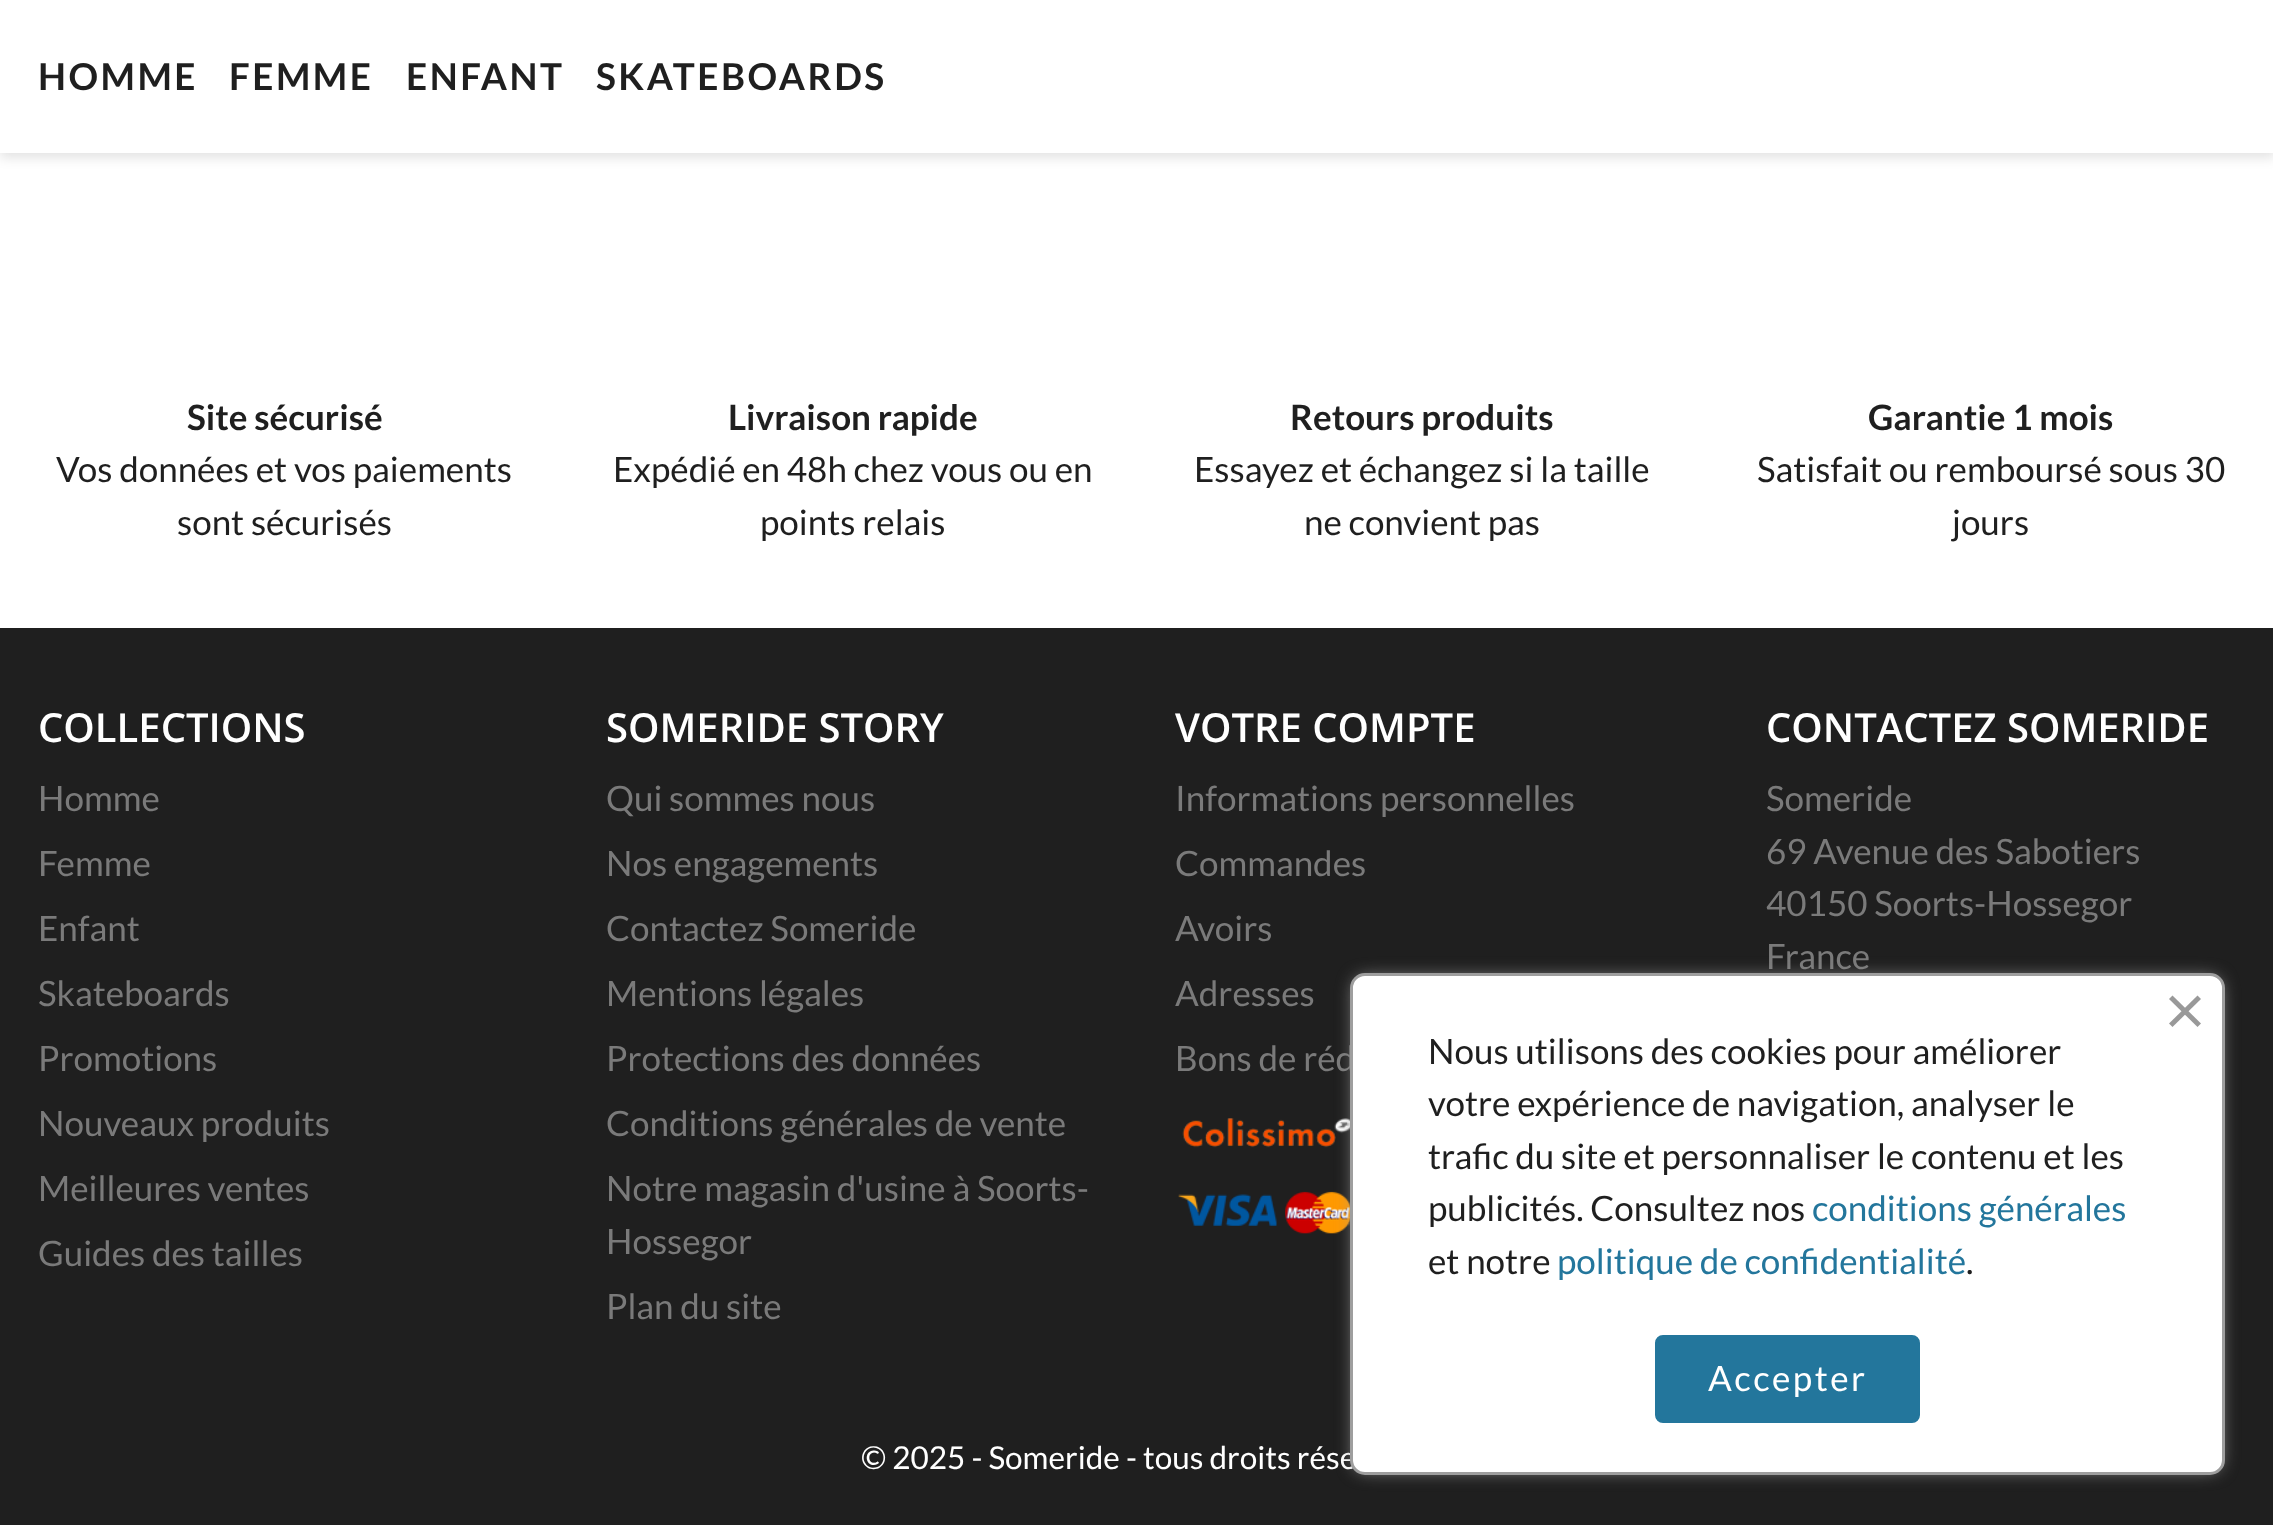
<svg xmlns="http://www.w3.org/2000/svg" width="2273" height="1525">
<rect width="100%" height="100%" fill="#fff"/>
<rect y="5" width="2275" height="153" fill="#0000001c" filter="blur(6px)"/>
<rect width="2273" height="153" fill="#fff"/>
<text x="38" y="90" style="font-family:Lato;font-size:37px;font-weight:bold;letter-spacing:2.5px;fill:#1f1f1f">HOMME</text>
<text x="229" y="90" style="font-family:Lato;font-size:37px;font-weight:bold;letter-spacing:2.5px;fill:#1f1f1f">FEMME</text>
<text x="406" y="90" style="font-family:Lato;font-size:37px;font-weight:bold;letter-spacing:2.5px;fill:#1f1f1f">ENFANT</text>
<text x="596" y="90" style="font-family:Lato;font-size:37px;font-weight:bold;letter-spacing:2.5px;fill:#1f1f1f">SKATEBOARDS</text>
<text x="187" y="430" style="font-family:Lato;font-size:35px;font-weight:bold;fill:#1f1f1f">Site sécurisé</text>
<text x="56" y="482" style="font-family:Lato;font-size:35px;fill:#1f1f1f">Vos données et vos paiements</text>
<text x="177" y="535" style="font-family:Lato;font-size:35px;fill:#1f1f1f">sont sécurisés</text>
<text x="728" y="430" style="font-family:Lato;font-size:35px;font-weight:bold;fill:#1f1f1f">Livraison rapide</text>
<text x="613" y="482" style="font-family:Lato;font-size:35px;fill:#1f1f1f">Expédié en 48h chez vous ou en</text>
<text x="760" y="535" style="font-family:Lato;font-size:35px;fill:#1f1f1f">points relais</text>
<text x="1290" y="430" style="font-family:Lato;font-size:35px;font-weight:bold;fill:#1f1f1f">Retours produits</text>
<text x="1194" y="482" style="font-family:Lato;font-size:35px;fill:#1f1f1f">Essayez et échangez si la taille</text>
<text x="1304" y="535" style="font-family:Lato;font-size:35px;fill:#1f1f1f">ne convient pas</text>
<text x="1868" y="430" style="font-family:Lato;font-size:35px;font-weight:bold;fill:#1f1f1f">Garantie 1 mois</text>
<text x="1757" y="482" style="font-family:Lato;font-size:35px;fill:#1f1f1f">Satisfait ou remboursé sous 30</text>
<text x="1952" y="535" style="font-family:Lato;font-size:35px;fill:#1f1f1f">jours</text>
<rect y="628" width="2273" height="897" fill="#1f1f1f"/>
<text x="38" y="742" style="font-family:Open Sans;font-size:40px;font-weight:600;fill:#fff">COLLECTIONS</text>
<text x="38" y="811" style="font-family:Lato;font-size:35px;fill:#7a7a7a">Homme</text>
<text x="38" y="876" style="font-family:Lato;font-size:35px;fill:#7a7a7a">Femme</text>
<text x="38" y="941" style="font-family:Lato;font-size:35px;fill:#7a7a7a">Enfant</text>
<text x="38" y="1006" style="font-family:Lato;font-size:35px;fill:#7a7a7a">Skateboards</text>
<text x="38" y="1071" style="font-family:Lato;font-size:35px;fill:#7a7a7a">Promotions</text>
<text x="38" y="1136" style="font-family:Lato;font-size:35px;fill:#7a7a7a">Nouveaux produits</text>
<text x="38" y="1201" style="font-family:Lato;font-size:35px;fill:#7a7a7a">Meilleures ventes</text>
<text x="38" y="1266" style="font-family:Lato;font-size:35px;fill:#7a7a7a">Guides des tailles</text>
<text x="606" y="742" style="font-family:Open Sans;font-size:40px;font-weight:600;fill:#fff">SOMERIDE STORY</text>
<text x="606" y="811" style="font-family:Lato;font-size:35px;fill:#7a7a7a">Qui sommes nous</text>
<text x="606" y="876" style="font-family:Lato;font-size:35px;fill:#7a7a7a">Nos engagements</text>
<text x="606" y="941" style="font-family:Lato;font-size:35px;fill:#7a7a7a">Contactez Someride</text>
<text x="606" y="1006" style="font-family:Lato;font-size:35px;fill:#7a7a7a">Mentions légales</text>
<text x="606" y="1071" style="font-family:Lato;font-size:35px;fill:#7a7a7a">Protections des données</text>
<text x="606" y="1136" style="font-family:Lato;font-size:35px;fill:#7a7a7a">Conditions générales de vente</text>
<text x="606" y="1201" style="font-family:Lato;font-size:35px;fill:#7a7a7a">Notre magasin d'usine à Soorts-</text>
<text x="606" y="1254" style="font-family:Lato;font-size:35px;fill:#7a7a7a">Hossegor</text>
<text x="606" y="1319" style="font-family:Lato;font-size:35px;fill:#7a7a7a">Plan du site</text>
<text x="1175" y="742" style="font-family:Open Sans;font-size:40px;font-weight:600;fill:#fff">VOTRE COMPTE</text>
<text x="1175" y="811" style="font-family:Lato;font-size:35px;fill:#7a7a7a">Informations personnelles</text>
<text x="1175" y="876" style="font-family:Lato;font-size:35px;fill:#7a7a7a">Commandes</text>
<text x="1175" y="941" style="font-family:Lato;font-size:35px;fill:#7a7a7a">Avoirs</text>
<text x="1175" y="1006" style="font-family:Lato;font-size:35px;fill:#7a7a7a">Adresses</text>
<text x="1175" y="1071" style="font-family:Lato;font-size:35px;fill:#7a7a7a">Bons de réd</text>
<image x="1182" y="1118" width="168" height="30" href="media/1.png"/>
<image x="1178" y="1191" width="172" height="43" href="media/2.png"/>
<text x="1766" y="742" style="font-family:Open Sans;font-size:40px;font-weight:600;fill:#fff">CONTACTEZ SOMERIDE</text>
<text x="1766" y="811" style="font-family:Lato;font-size:35px;fill:#7a7a7a">Someride</text>
<text x="1766" y="864" style="font-family:Lato;font-size:35px;fill:#7a7a7a">69 Avenue des Sabotiers</text>
<text x="1766" y="916" style="font-family:Lato;font-size:35px;fill:#7a7a7a">40150 Soorts-Hossegor</text>
<text x="1766" y="969" style="font-family:Lato;font-size:35px;fill:#7a7a7a">France</text>
<text x="861" y="1469" style="font-family:Lato;font-size:31.5px;fill:#fff">© 2025 - Someride - tous droits rése</text>
<rect x="1355" y="978" width="865" height="492" rx="10" fill="#9e9e9e" filter="blur(9px)"/>
<rect x="1351.5" y="974.5" width="872" height="499" rx="13.5" fill="#fff" stroke="#9e9e9e" stroke-width="3"/>
<path d="M2169 1023.5l28.5-28l3.5 3.5l-28.5 28z" fill="#999"/>
<path d="M2172.5 995.5l28.5 28l-3.5 3.5l-28.5-28z" fill="#999"/>
<text x="1428" y="1064" style="font-family:Lato;font-size:35px;fill:#1f1f1f">Nous utilisons des cookies pour améliorer</text>
<text x="1428" y="1116" style="font-family:Lato;font-size:35px;fill:#1f1f1f">votre expérience de navigation, analyser le</text>
<text x="1428" y="1169" style="font-family:Lato;font-size:35px;fill:#1f1f1f">trafic du site et personnaliser le contenu et les</text>
<text x="1428" y="1221" style="font-family:Lato;font-size:35px;fill:#1f1f1f">publicités. Consultez nos</text>
<text x="1812" y="1221" style="font-family:Lato;font-size:35px;fill:#23769c">conditions générales</text>
<text x="1428" y="1274" style="font-family:Lato;font-size:35px;fill:#1f1f1f">et notre</text>
<text x="1557" y="1274" style="font-family:Lato;font-size:35px;fill:#23769c">politique de confidentialité</text>
<text x="1966" y="1274" style="font-family:Lato;font-size:35px;fill:#1f1f1f">.</text>
<rect x="1656.5" y="1336.5" width="262" height="85" rx="6.5" fill="#23769c" stroke="#23769c" stroke-width="3"/>
<text x="1708" y="1391" style="font-family:Lato;font-size:35px;letter-spacing:2.5px;fill:#fff">Accepter</text>
</svg>
